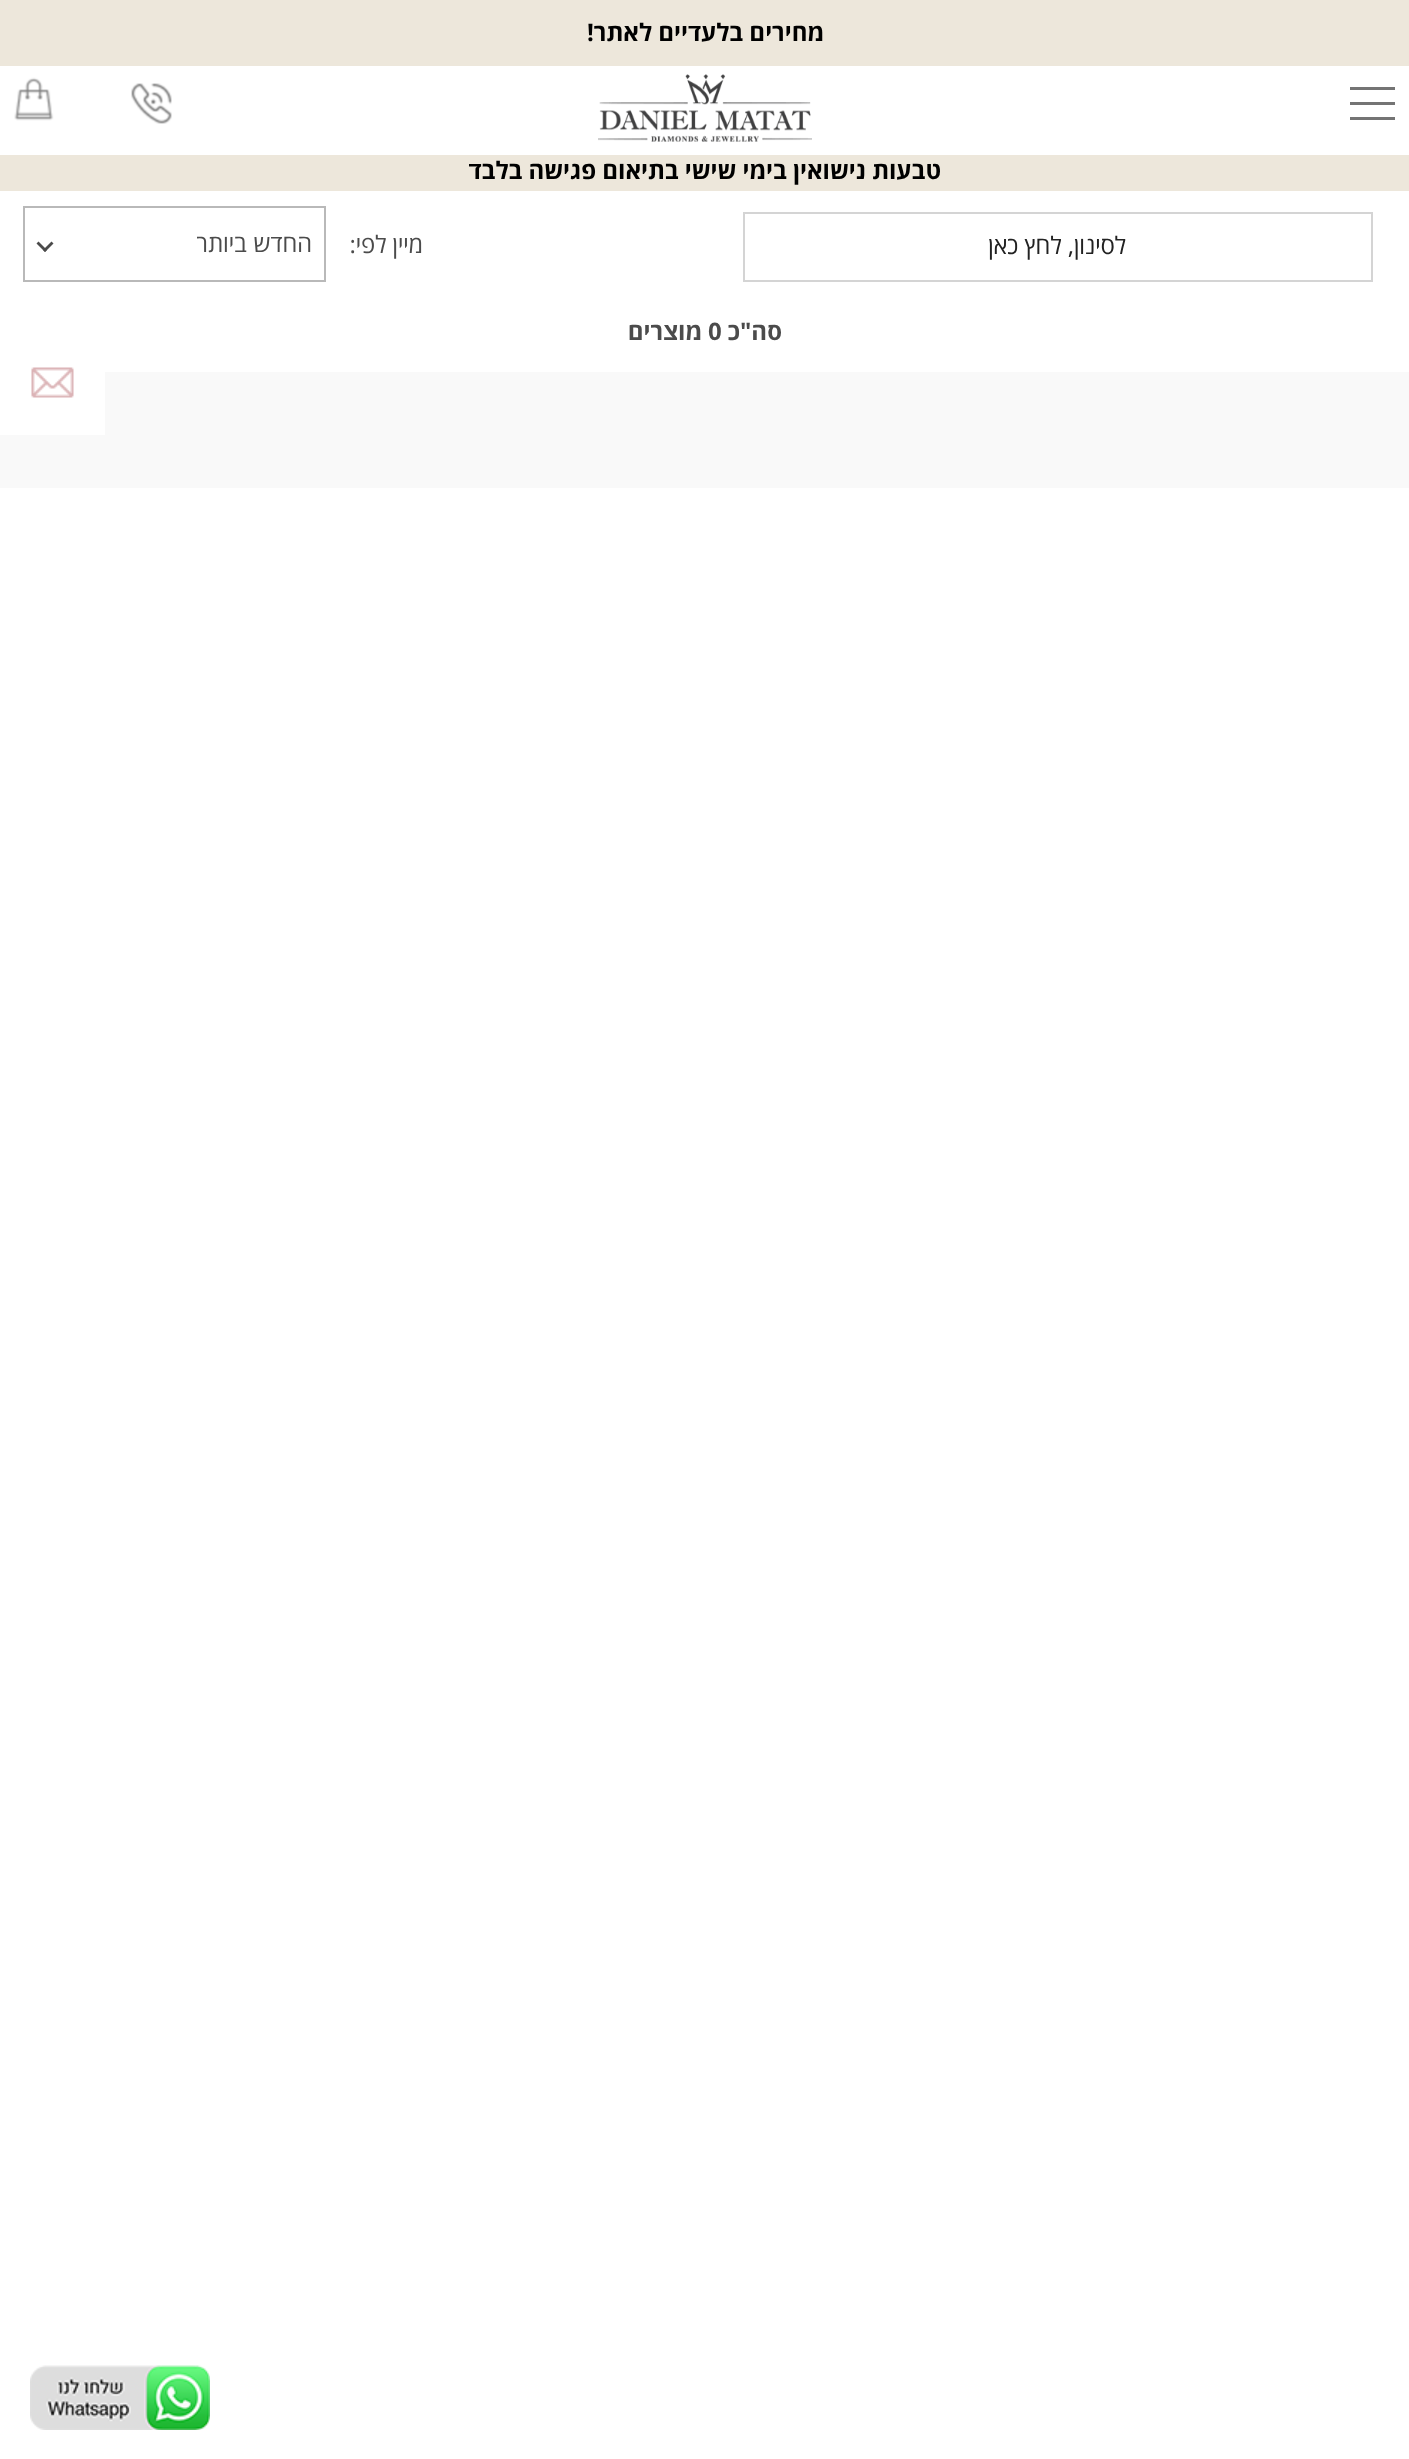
<svg xmlns="http://www.w3.org/2000/svg" width="1409" height="2459">
<rect width="100%" height="100%" fill="#fff"/>
<rect width="1409" height="66" fill="#ede7db"/>
<text x="824" y="41" style="font-family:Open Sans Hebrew;font-size:24px;font-weight:bold;direction:rtl;fill:#000">מחירים בלעדיים לאתר!</text>
<rect x="1350" y="117" width="45" height="3" fill="#747474"/>
<rect x="1350" y="102" width="45" height="3" fill="#747474"/>
<rect x="1350" y="87" width="45" height="3" fill="#747474"/>
<image x="598" y="74" width="214" height="68" href="media/1.png"/>
<image x="131" y="83" width="41" height="41" href="media/2.png"/>
<image x="14" y="77" width="40" height="44" href="media/3.png"/>
<rect y="155" width="1409" height="36" fill="#ede7db"/>
<text x="941" y="179" style="font-family:Open Sans Hebrew;font-size:24px;font-weight:bold;direction:rtl;fill:#000">טבעות נישואין בימי שישי בתיאום פגישה בלבד</text>
<rect x="744" y="213" width="628" height="68" fill="none" stroke="#d4d4d4" stroke-width="2"/>
<text x="1126" y="254" style="font-family:Open Sans Hebrew;font-size:24px;direction:rtl;fill:#222">לסינון, לחץ כאן</text>
<text x="423" y="253" style="font-family:Open Sans Hebrew;font-size:24px;direction:rtl;fill:#4b4b4b">מיין לפי:</text>
<rect x="24" y="207" width="301" height="74" fill="none" stroke="#b9b9b9" stroke-width="2"/>
<text x="312" y="252" style="font-family:Open Sans Hebrew;font-size:24px;direction:rtl;fill:#4b4b4b">החדש ביותר</text>
<path d="M43 250l8.5-8.5l2 2l-8.5 8.5z" fill="#4b4b4b"/>
<path d="M36.5 243.5l2-2l8.5 8.5l-2 2z" fill="#4b4b4b"/>
<text x="782" y="340" style="font-family:Open Sans Hebrew;font-size:24px;font-weight:bold;direction:rtl;fill:#4b4b4b">סה"כ</text>
<text x="708" y="340" style="font-family:Open Sans Hebrew;font-size:24px;font-weight:bold;fill:#4b4b4b">0</text>
<text x="702" y="340" style="font-family:Open Sans Hebrew;font-size:24px;font-weight:bold;direction:rtl;fill:#4b4b4b">מוצרים</text>
<rect y="372" width="1409" height="116" fill="#f9f9f9"/>
<rect y="372" width="105" height="63" fill="#fff"/>
<image x="31" y="367" width="43" height="31" href="media/4.png"/>
<image x="30" y="2365" width="180" height="65" href="media/5.png"/>
</svg>
